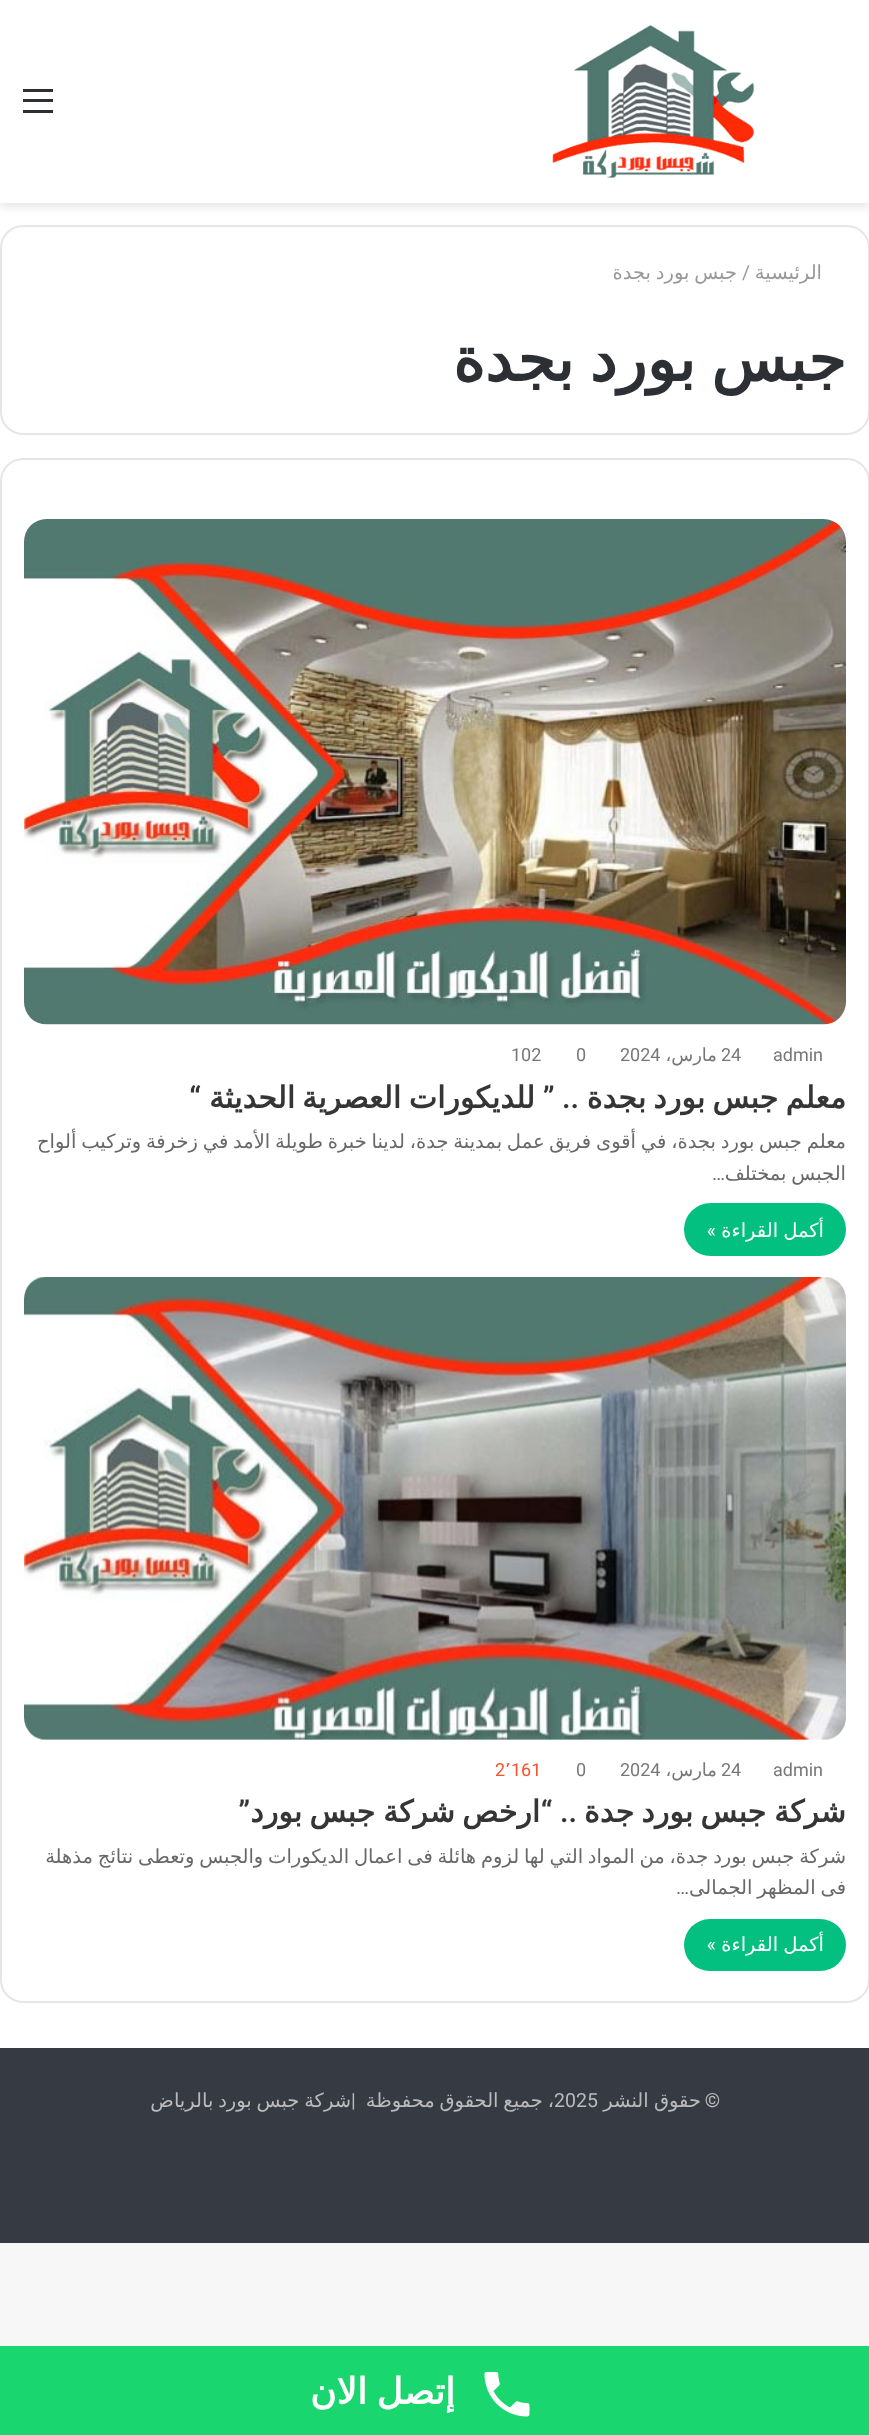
<svg xmlns="http://www.w3.org/2000/svg" width="869" height="2435">
<rect width="100%" height="100%" fill="#f7f7f7"/>
<rect y="203" width="869" height="1845" fill="#fff"/>
<rect y="5" width="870" height="202" fill="#0000001a" filter="blur(5px)"/>
<rect width="869" height="203" fill="#fff"/>
<image x="552" y="25" width="203" height="154" href="media/1.png"/>
<rect x="23" y="99" width="30" height="3" fill="#2c2f34"/>
<rect x="23" y="89" width="30" height="3" fill="#2c2f34"/>
<rect x="23" y="110" width="30" height="3" fill="#2c2f34"/>
<rect x="1" y="226" width="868" height="208" rx="22" fill="none" stroke="#e6e6e6" stroke-width="2"/>
<text x="822" y="279" style="font-family:DejaVu Sans;font-size:19.5px;direction:rtl;fill:#999">الرئيسية</text>
<text x="742" y="279" style="font-family:Roboto;font-size:19.5px;fill:#999">/</text>
<text x="737" y="279" word-spacing="-1.4" style="font-family:DejaVu Sans;font-size:19.5px;direction:rtl;fill:#999">جبس بورد بجدة</text>
<text x="846" y="381" word-spacing="-4" style="font-family:DejaVu Sans;font-size:61.5px;font-weight:bold;direction:rtl;fill:#2c2f34">جبس بورد بجدة</text>
<rect x="1" y="459" width="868" height="1543" rx="22" fill="none" stroke="#e6e6e6" stroke-width="2"/>
<image x="24" y="519" width="822" height="506" href="media/2.png"/>
<text x="773" y="1061" style="font-family:Roboto;font-size:18px;fill:#777">admin</text>
<text x="721" y="1061" style="font-family:Roboto;font-size:18px;fill:#777">24</text>
<text x="717" y="1061" style="font-family:DejaVu Sans;font-size:18px;direction:rtl;fill:#777">مارس،</text>
<text x="620" y="1061" style="font-family:Roboto;font-size:18px;fill:#777">2024</text>
<text x="576" y="1061" style="font-family:Roboto;font-size:18px;fill:#777">0</text>
<text x="511" y="1061" style="font-family:Roboto;font-size:18px;fill:#777">102</text>
<text x="846" y="1108" style="font-family:DejaVu Sans;font-size:30px;font-weight:bold;direction:rtl;fill:#353535">معلم</text>
<text x="778" y="1108" style="font-family:DejaVu Sans;font-size:30px;font-weight:bold;direction:rtl;fill:#353535">جبس</text>
<text x="705" y="1108" style="font-family:DejaVu Sans;font-size:30px;font-weight:bold;direction:rtl;fill:#353535">بورد</text>
<text x="646" y="1108" style="font-family:DejaVu Sans;font-size:30px;font-weight:bold;direction:rtl;fill:#353535">بجدة</text>
<text x="579" y="1108" style="font-family:Roboto;font-size:30px;font-weight:600;direction:rtl;fill:#353535">.. ”</text>
<text x="535" y="1108" style="font-family:DejaVu Sans;font-size:30px;font-weight:bold;direction:rtl;fill:#353535">للديكورات</text>
<text x="401" y="1108" style="font-family:DejaVu Sans;font-size:30px;font-weight:bold;direction:rtl;fill:#353535">العصرية</text>
<text x="295" y="1108" style="font-family:DejaVu Sans;font-size:30px;font-weight:bold;direction:rtl;fill:#353535">الحديثة</text>
<text x="201" y="1108" style="font-family:Roboto;font-size:30px;font-weight:600;direction:rtl;fill:#353535">“</text>
<text x="846" y="1148" word-spacing="-1.4" style="font-family:DejaVu Sans;font-size:19.5px;direction:rtl;fill:#686868">معلم جبس بورد بجدة، في أقوى فريق عمل بمدينة جدة، لدينا خبرة طويلة الأمد في زخرفة وتركيب ألواح</text>
<text x="846" y="1180" word-spacing="-1.4" style="font-family:DejaVu Sans;font-size:19.5px;direction:rtl;fill:#686868">الجبس بمختلف</text>
<text x="725" y="1180" style="font-family:Roboto;font-size:19.5px;direction:rtl;fill:#686868">…</text>
<rect x="684" y="1203" width="162" height="53" rx="26.5" fill="#03c081"/>
<text x="824" y="1237" word-spacing="-1" style="font-family:DejaVu Sans;font-size:19.5px;direction:rtl;fill:#fff">أكمل القراءة</text>
<text x="716" y="1237" style="font-family:Roboto;font-size:19.5px;direction:rtl;fill:#fff">»</text>
<image x="24" y="1277" width="822" height="463" href="media/3.png"/>
<text x="773" y="1776" style="font-family:Roboto;font-size:18px;fill:#777">admin</text>
<text x="721" y="1776" style="font-family:Roboto;font-size:18px;fill:#777">24</text>
<text x="717" y="1776" style="font-family:DejaVu Sans;font-size:18px;direction:rtl;fill:#777">مارس،</text>
<text x="620" y="1776" style="font-family:Roboto;font-size:18px;fill:#777">2024</text>
<text x="576" y="1776" style="font-family:Roboto;font-size:18px;fill:#777">0</text>
<text x="511" y="1776" style="font-family:Roboto;font-size:18px;fill:#f3522c">161</text>
<text x="505" y="1776" style="font-family:DejaVu Sans;font-size:18px;fill:#f3522c">٬</text>
<text x="495" y="1776" style="font-family:Roboto;font-size:18px;fill:#f3522c">2</text>
<text x="846" y="1822" style="font-family:DejaVu Sans;font-size:30px;font-weight:bold;direction:rtl;fill:#353535">شركة</text>
<text x="766" y="1822" style="font-family:DejaVu Sans;font-size:30px;font-weight:bold;direction:rtl;fill:#353535">جبس</text>
<text x="693" y="1822" style="font-family:DejaVu Sans;font-size:30px;font-weight:bold;direction:rtl;fill:#353535">بورد</text>
<text x="634" y="1822" style="font-family:DejaVu Sans;font-size:30px;font-weight:bold;direction:rtl;fill:#353535">جدة</text>
<text x="577" y="1822" style="font-family:Roboto;font-size:30px;font-weight:600;direction:rtl;fill:#353535">.. “</text>
<text x="540" y="1822" style="font-family:DejaVu Sans;font-size:30px;font-weight:bold;direction:rtl;fill:#353535">ارخص</text>
<text x="455" y="1822" style="font-family:DejaVu Sans;font-size:30px;font-weight:bold;direction:rtl;fill:#353535">شركة</text>
<text x="375" y="1822" style="font-family:DejaVu Sans;font-size:30px;font-weight:bold;direction:rtl;fill:#353535">جبس</text>
<text x="302" y="1822" style="font-family:DejaVu Sans;font-size:30px;font-weight:bold;direction:rtl;fill:#353535">بورد</text>
<text x="250" y="1822" style="font-family:Roboto;font-size:30px;font-weight:600;direction:rtl;fill:#353535">”</text>
<text x="846" y="1863" word-spacing="-1.4" style="font-family:DejaVu Sans;font-size:19.5px;direction:rtl;fill:#686868">شركة جبس بورد جدة، من المواد التي لها لزوم هائلة فى اعمال الديكورات والجبس وتعطى نتائج مذهلة</text>
<text x="846" y="1894" word-spacing="-1.4" style="font-family:DejaVu Sans;font-size:19.5px;direction:rtl;fill:#686868">فى المظهر الجمالى</text>
<text x="689" y="1894" style="font-family:Roboto;font-size:19.5px;direction:rtl;fill:#686868">…</text>
<rect x="684" y="1919" width="162" height="52" rx="26" fill="#03c081"/>
<text x="824" y="1951" word-spacing="-1" style="font-family:DejaVu Sans;font-size:19.5px;direction:rtl;fill:#fff">أكمل القراءة</text>
<text x="716" y="1951" style="font-family:Roboto;font-size:19.5px;direction:rtl;fill:#fff">»</text>
<rect y="2048" width="869" height="195" fill="#363a42"/>
<text x="720" y="2107" style="font-family:Roboto;font-size:19.5px;direction:rtl;fill:#bbb">©</text>
<text x="701" y="2107" word-spacing="-1" style="font-family:DejaVu Sans;font-size:19.5px;direction:rtl;fill:#bbb">حقوق النشر</text>
<text x="554" y="2107" word-spacing="-1.4" style="font-family:DejaVu Sans;font-size:19.5px;direction:rtl;fill:#bbb">، جميع الحقوق محفوظة</text>
<text x="554" y="2107" style="font-family:Roboto;font-size:19.5px;fill:#bbb">2025</text>
<text x="351" y="2107" style="font-family:Roboto;font-size:19.5px;fill:#bbb">|</text>
<text x="351" y="2107" word-spacing="-1.4" style="font-family:DejaVu Sans;font-size:19.5px;direction:rtl;fill:#bbb">شركة جبس بورد بالرياض</text>
<rect y="2346" width="869" height="89" fill="#1ad66f"/>
<image x="484" y="2372" width="46" height="45" href="media/4.png"/>
<text x="455" y="2404" word-spacing="-2" style="font-family:DejaVu Sans;font-size:36px;font-weight:bold;direction:rtl;fill:#fff">إتصل الان</text>
</svg>
